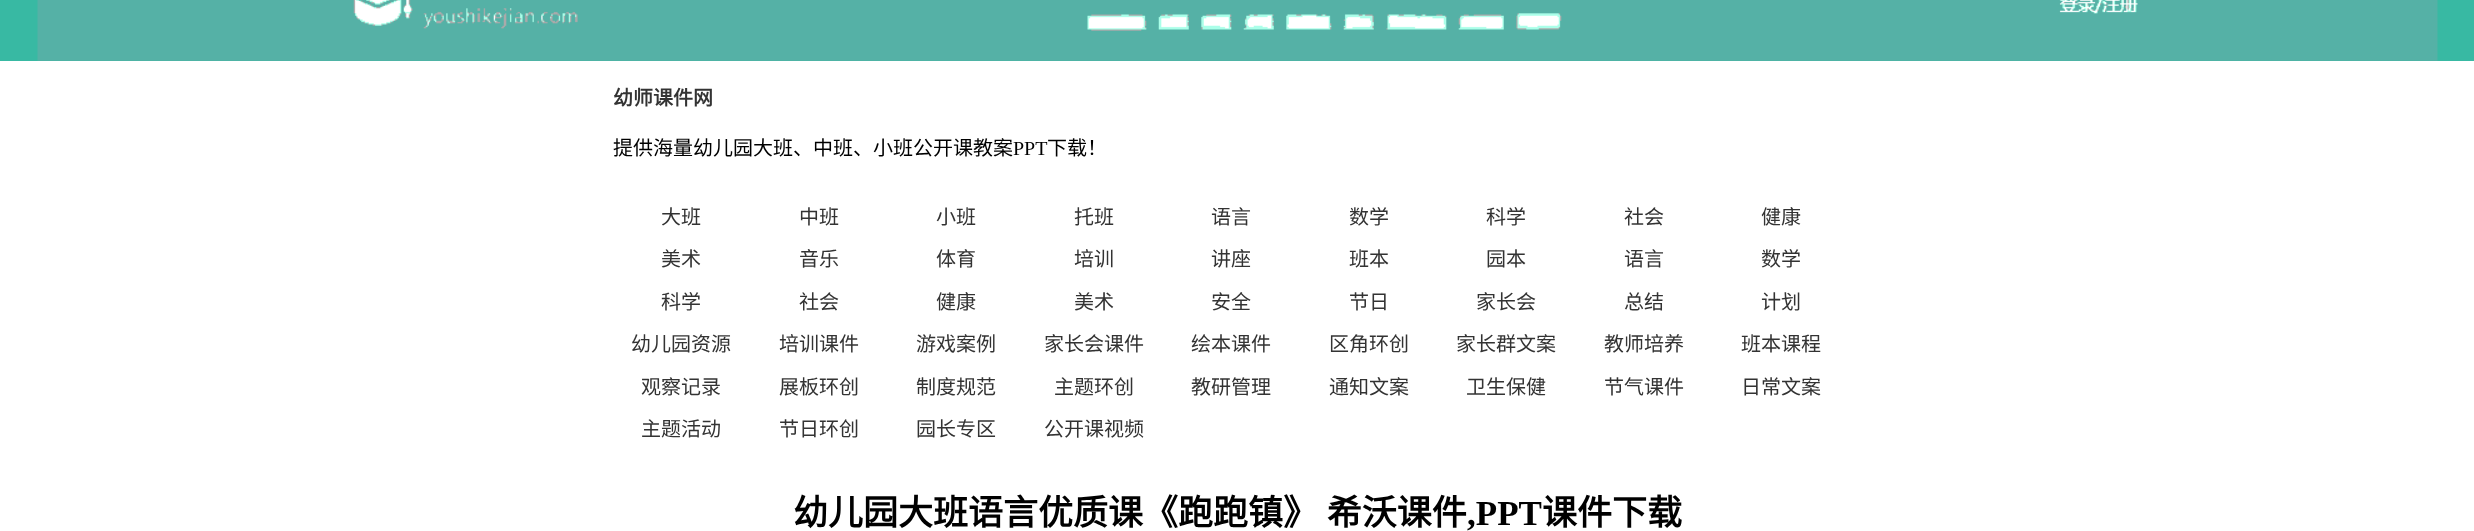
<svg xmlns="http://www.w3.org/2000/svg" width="2474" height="531">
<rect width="100%" height="100%" fill="#fff"/>
<rect width="2474" height="61" fill="#38b9a3"/>
<image x="37" y="0" width="2401" height="61" href="media/1.png"/>
<text x="613" y="105" style="font-family:Noto Sans CJK SC;font-size:20px;font-weight:bold;fill:#333">幼师课件网</text>
<text x="613" y="155" style="font-family:Noto Sans CJK SC;font-size:20px;fill:#000">提供海量幼儿园大班、中班、小班公开课教案</text>
<text x="1013" y="155" style="font-family:Liberation Serif;font-size:20px;fill:#000">PPT</text>
<text x="1047" y="155" style="font-family:Noto Sans CJK SC;font-size:20px;fill:#000">下载！</text>
<text x="661" y="224" style="font-family:Noto Sans CJK SC;font-size:20px;fill:#333">大班</text>
<text x="799" y="224" style="font-family:Noto Sans CJK SC;font-size:20px;fill:#333">中班</text>
<text x="936" y="224" style="font-family:Noto Sans CJK SC;font-size:20px;fill:#333">小班</text>
<text x="1074" y="224" style="font-family:Noto Sans CJK SC;font-size:20px;fill:#333">托班</text>
<text x="1211" y="224" style="font-family:Noto Sans CJK SC;font-size:20px;fill:#333">语言</text>
<text x="1349" y="224" style="font-family:Noto Sans CJK SC;font-size:20px;fill:#333">数学</text>
<text x="1486" y="224" style="font-family:Noto Sans CJK SC;font-size:20px;fill:#333">科学</text>
<text x="1624" y="224" style="font-family:Noto Sans CJK SC;font-size:20px;fill:#333">社会</text>
<text x="1761" y="224" style="font-family:Noto Sans CJK SC;font-size:20px;fill:#333">健康</text>
<text x="661" y="266" style="font-family:Noto Sans CJK SC;font-size:20px;fill:#333">美术</text>
<text x="799" y="266" style="font-family:Noto Sans CJK SC;font-size:20px;fill:#333">音乐</text>
<text x="936" y="266" style="font-family:Noto Sans CJK SC;font-size:20px;fill:#333">体育</text>
<text x="1074" y="266" style="font-family:Noto Sans CJK SC;font-size:20px;fill:#333">培训</text>
<text x="1211" y="266" style="font-family:Noto Sans CJK SC;font-size:20px;fill:#333">讲座</text>
<text x="1349" y="266" style="font-family:Noto Sans CJK SC;font-size:20px;fill:#333">班本</text>
<text x="1486" y="266" style="font-family:Noto Sans CJK SC;font-size:20px;fill:#333">园本</text>
<text x="1624" y="266" style="font-family:Noto Sans CJK SC;font-size:20px;fill:#333">语言</text>
<text x="1761" y="266" style="font-family:Noto Sans CJK SC;font-size:20px;fill:#333">数学</text>
<text x="661" y="309" style="font-family:Noto Sans CJK SC;font-size:20px;fill:#333">科学</text>
<text x="799" y="309" style="font-family:Noto Sans CJK SC;font-size:20px;fill:#333">社会</text>
<text x="936" y="309" style="font-family:Noto Sans CJK SC;font-size:20px;fill:#333">健康</text>
<text x="1074" y="309" style="font-family:Noto Sans CJK SC;font-size:20px;fill:#333">美术</text>
<text x="1211" y="309" style="font-family:Noto Sans CJK SC;font-size:20px;fill:#333">安全</text>
<text x="1349" y="309" style="font-family:Noto Sans CJK SC;font-size:20px;fill:#333">节日</text>
<text x="1476" y="309" style="font-family:Noto Sans CJK SC;font-size:20px;fill:#333">家长会</text>
<text x="1624" y="309" style="font-family:Noto Sans CJK SC;font-size:20px;fill:#333">总结</text>
<text x="1761" y="309" style="font-family:Noto Sans CJK SC;font-size:20px;fill:#333">计划</text>
<text x="631" y="351" style="font-family:Noto Sans CJK SC;font-size:20px;fill:#333">幼儿园资源</text>
<text x="779" y="351" style="font-family:Noto Sans CJK SC;font-size:20px;fill:#333">培训课件</text>
<text x="916" y="351" style="font-family:Noto Sans CJK SC;font-size:20px;fill:#333">游戏案例</text>
<text x="1044" y="351" style="font-family:Noto Sans CJK SC;font-size:20px;fill:#333">家长会课件</text>
<text x="1191" y="351" style="font-family:Noto Sans CJK SC;font-size:20px;fill:#333">绘本课件</text>
<text x="1329" y="351" style="font-family:Noto Sans CJK SC;font-size:20px;fill:#333">区角环创</text>
<text x="1456" y="351" style="font-family:Noto Sans CJK SC;font-size:20px;fill:#333">家长群文案</text>
<text x="1604" y="351" style="font-family:Noto Sans CJK SC;font-size:20px;fill:#333">教师培养</text>
<text x="1741" y="351" style="font-family:Noto Sans CJK SC;font-size:20px;fill:#333">班本课程</text>
<text x="641" y="394" style="font-family:Noto Sans CJK SC;font-size:20px;fill:#333">观察记录</text>
<text x="779" y="394" style="font-family:Noto Sans CJK SC;font-size:20px;fill:#333">展板环创</text>
<text x="916" y="394" style="font-family:Noto Sans CJK SC;font-size:20px;fill:#333">制度规范</text>
<text x="1054" y="394" style="font-family:Noto Sans CJK SC;font-size:20px;fill:#333">主题环创</text>
<text x="1191" y="394" style="font-family:Noto Sans CJK SC;font-size:20px;fill:#333">教研管理</text>
<text x="1329" y="394" style="font-family:Noto Sans CJK SC;font-size:20px;fill:#333">通知文案</text>
<text x="1466" y="394" style="font-family:Noto Sans CJK SC;font-size:20px;fill:#333">卫生保健</text>
<text x="1604" y="394" style="font-family:Noto Sans CJK SC;font-size:20px;fill:#333">节气课件</text>
<text x="1741" y="394" style="font-family:Noto Sans CJK SC;font-size:20px;fill:#333">日常文案</text>
<text x="641" y="436" style="font-family:Noto Sans CJK SC;font-size:20px;fill:#333">主题活动</text>
<text x="779" y="436" style="font-family:Noto Sans CJK SC;font-size:20px;fill:#333">节日环创</text>
<text x="916" y="436" style="font-family:Noto Sans CJK SC;font-size:20px;fill:#333">园长专区</text>
<text x="1044" y="436" style="font-family:Noto Sans CJK SC;font-size:20px;fill:#333">公开课视频</text>
<text x="793" y="525" word-spacing="1" style="font-family:Noto Sans CJK SC;font-size:35px;font-weight:bold;fill:#000">幼儿园大班语言优质课《跑跑镇》 希沃课件</text>
<text x="1467" y="525" style="font-family:Liberation Serif;font-size:35px;font-weight:bold;fill:#000">,PPT</text>
<text x="1542" y="525" style="font-family:Noto Sans CJK SC;font-size:35px;font-weight:bold;fill:#000">课件下载</text>
</svg>
